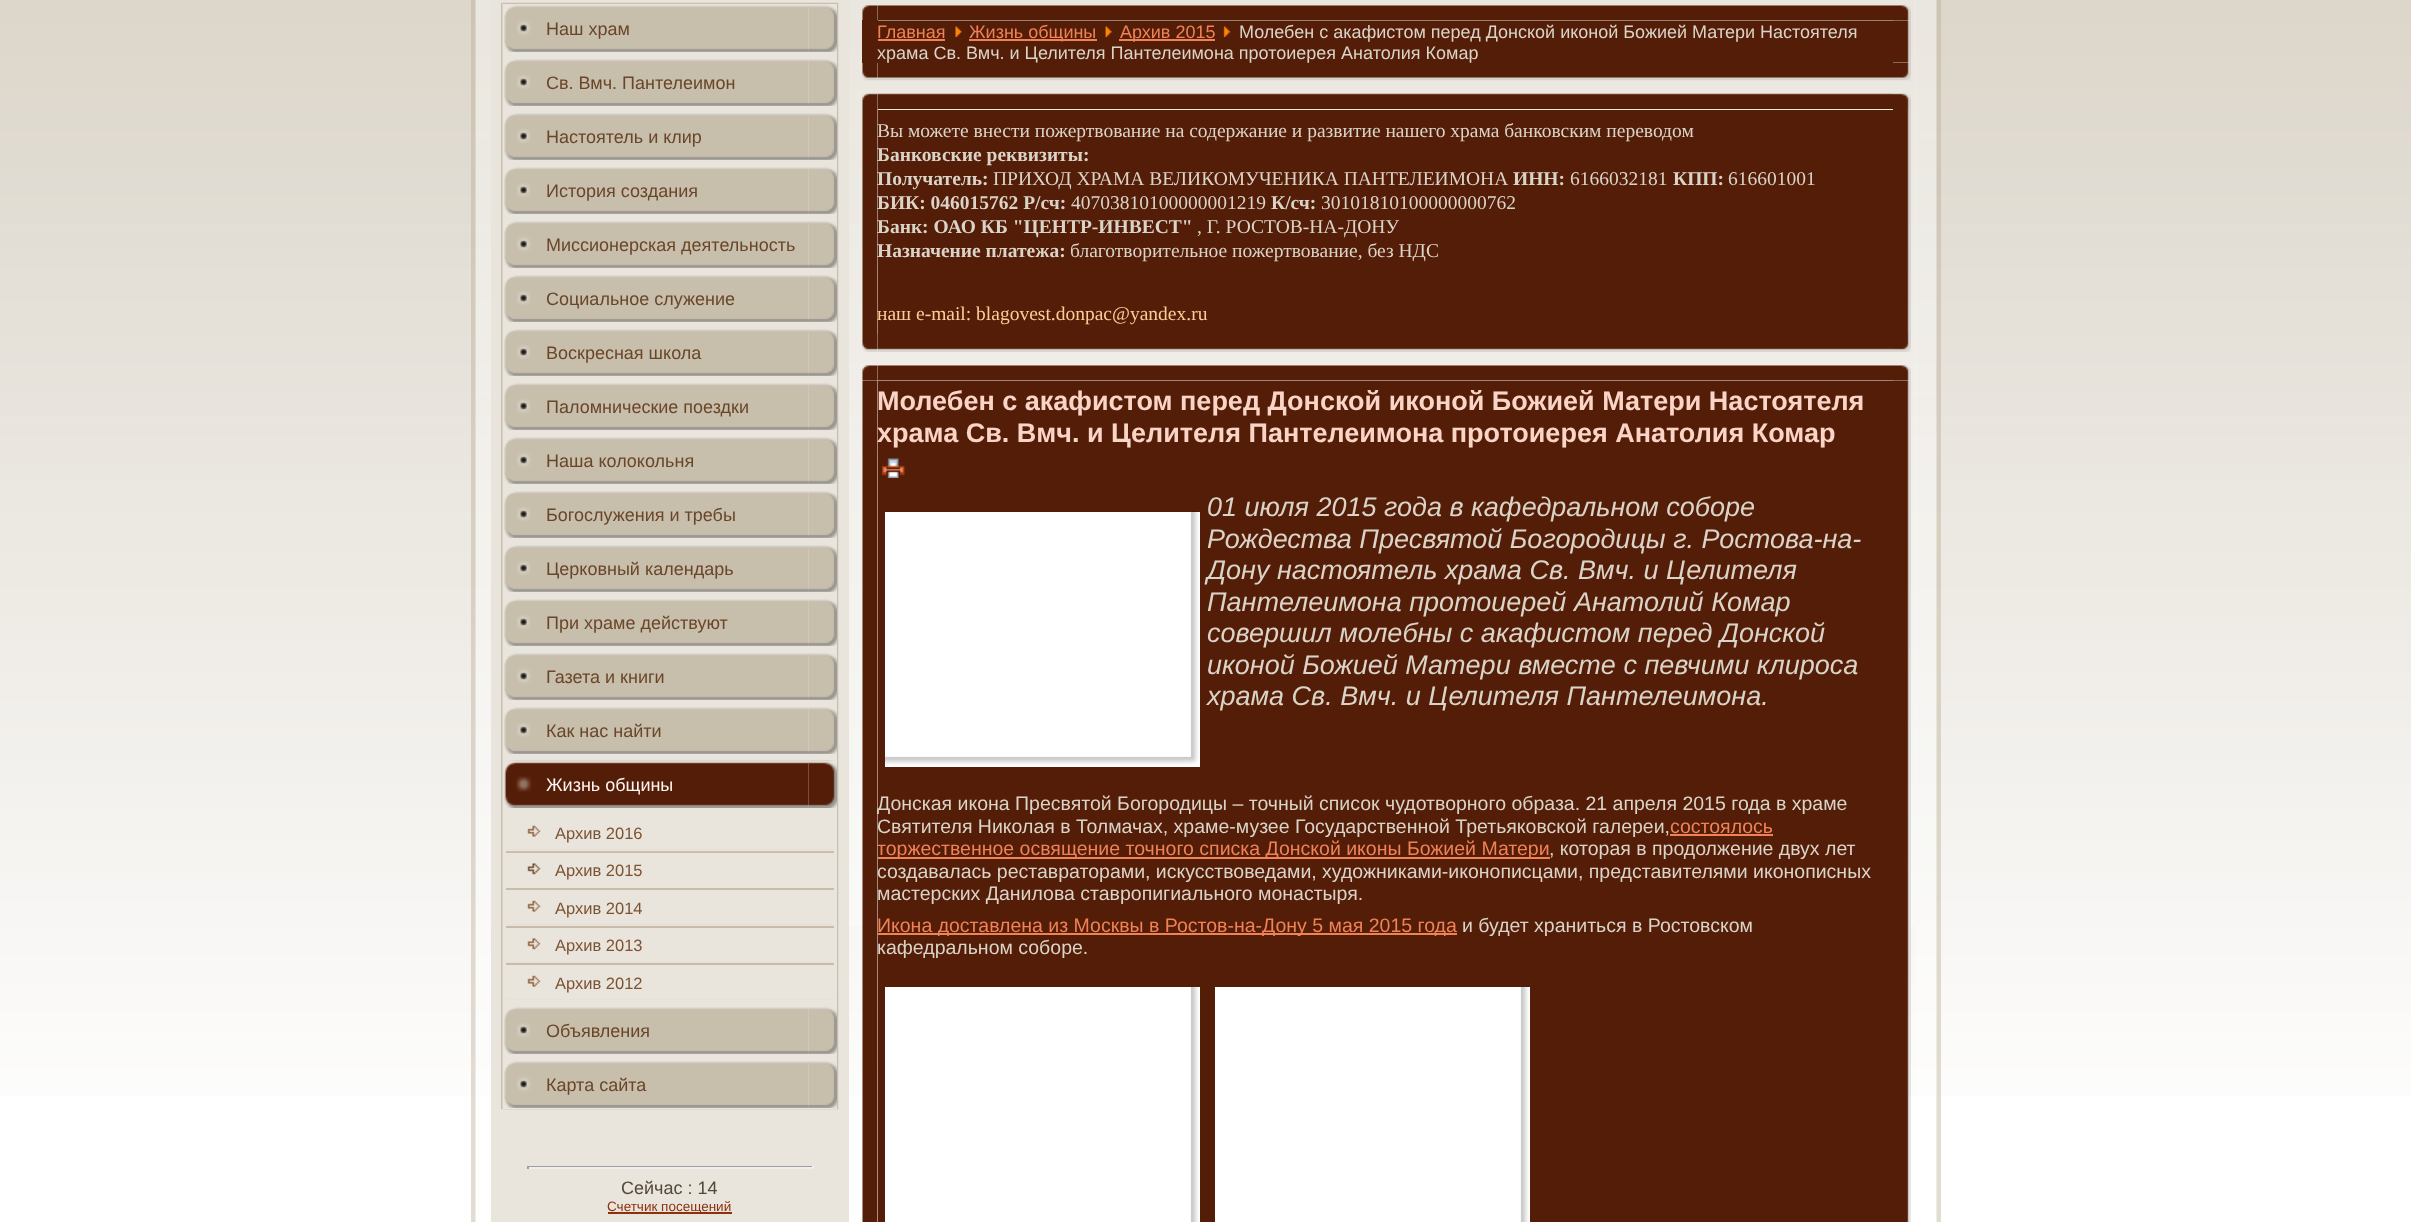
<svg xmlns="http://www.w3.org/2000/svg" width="2411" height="1222">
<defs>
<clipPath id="clip1"><rect x="885" y="512" width="315" height="255"/></clipPath>
<clipPath id="clip2"><rect x="885" y="987" width="315" height="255"/></clipPath>
<clipPath id="clip3"><rect x="1215" y="987" width="315" height="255"/></clipPath>
</defs>
<rect width="100%" height="100%" fill="#fff"/>
<image x="0" y="0" width="2411" height="1096" href="media/1.png"/>
<image x="471" y="0" width="20" height="1222" href="media/2.png"/>
<image x="1915" y="0" width="26" height="1222" href="media/3.png"/>
<rect x="849" width="1067" height="926" fill="#ffffff66"/>
<rect x="491" width="358" height="1222" fill="#e9e5dd"/>
<image x="501" y="2" width="2" height="2" href="media/4.png"/>
<image x="502" y="2" width="335" height="2" href="media/5.png"/>
<image x="837" y="2" width="2" height="2" href="media/6.png"/>
<image x="501" y="4" width="2" height="1104" href="media/7.png"/>
<image x="504" y="5" width="305" height="47" href="media/8.png"/>
<image x="808" y="5" width="29" height="47" href="media/9.png"/>
<text x="546" y="35" style="font-family:Liberation Sans;font-size:18px;fill:#6a4629">Наш храм</text>
<image x="504" y="59" width="305" height="47" href="media/8.png"/>
<image x="808" y="59" width="29" height="47" href="media/9.png"/>
<text x="546" y="89" style="font-family:Liberation Sans;font-size:18px;fill:#6a4629">Св. Вмч. Пантелеимон</text>
<image x="504" y="113" width="305" height="47" href="media/8.png"/>
<image x="808" y="113" width="29" height="47" href="media/9.png"/>
<text x="546" y="143" style="font-family:Liberation Sans;font-size:18px;fill:#6a4629">Настоятель и клир</text>
<image x="504" y="167" width="305" height="47" href="media/8.png"/>
<image x="808" y="167" width="29" height="47" href="media/9.png"/>
<text x="546" y="197" style="font-family:Liberation Sans;font-size:18px;fill:#6a4629">История создания</text>
<image x="504" y="221" width="305" height="47" href="media/8.png"/>
<image x="808" y="221" width="29" height="47" href="media/9.png"/>
<text x="546" y="251" style="font-family:Liberation Sans;font-size:18px;fill:#6a4629">Миссионерская деятельность</text>
<image x="504" y="275" width="305" height="47" href="media/8.png"/>
<image x="808" y="275" width="29" height="47" href="media/9.png"/>
<text x="546" y="305" style="font-family:Liberation Sans;font-size:18px;fill:#6a4629">Социальное служение</text>
<image x="504" y="329" width="305" height="47" href="media/8.png"/>
<image x="808" y="329" width="29" height="47" href="media/9.png"/>
<text x="546" y="359" style="font-family:Liberation Sans;font-size:18px;fill:#6a4629">Воскресная школа</text>
<image x="504" y="383" width="305" height="47" href="media/8.png"/>
<image x="808" y="383" width="29" height="47" href="media/9.png"/>
<text x="546" y="413" style="font-family:Liberation Sans;font-size:18px;fill:#6a4629">Паломнические поездки</text>
<image x="504" y="437" width="305" height="47" href="media/8.png"/>
<image x="808" y="437" width="29" height="47" href="media/9.png"/>
<text x="546" y="467" style="font-family:Liberation Sans;font-size:18px;fill:#6a4629">Наша колокольня</text>
<image x="504" y="491" width="305" height="47" href="media/8.png"/>
<image x="808" y="491" width="29" height="47" href="media/9.png"/>
<text x="546" y="521" style="font-family:Liberation Sans;font-size:18px;fill:#6a4629">Богослужения и требы</text>
<image x="504" y="545" width="305" height="47" href="media/8.png"/>
<image x="808" y="545" width="29" height="47" href="media/9.png"/>
<text x="546" y="575" style="font-family:Liberation Sans;font-size:18px;fill:#6a4629">Церковный календарь</text>
<image x="504" y="599" width="305" height="47" href="media/8.png"/>
<image x="808" y="599" width="29" height="47" href="media/9.png"/>
<text x="546" y="629" style="font-family:Liberation Sans;font-size:18px;fill:#6a4629">При храме действуют</text>
<image x="504" y="653" width="305" height="47" href="media/8.png"/>
<image x="808" y="653" width="29" height="47" href="media/9.png"/>
<text x="546" y="683" style="font-family:Liberation Sans;font-size:18px;fill:#6a4629">Газета и книги</text>
<image x="504" y="707" width="305" height="47" href="media/8.png"/>
<image x="808" y="707" width="29" height="47" href="media/9.png"/>
<text x="546" y="737" style="font-family:Liberation Sans;font-size:18px;fill:#6a4629">Как нас найти</text>
<image x="504" y="760" width="305" height="48" href="media/10.png"/>
<image x="808" y="760" width="29" height="48" href="media/11.png"/>
<text x="546" y="791" style="font-family:Liberation Sans;font-size:18px;fill:#fef5f1">Жизнь общины</text>
<image x="506" y="825" width="328" height="25" href="media/12.png"/>
<text x="555" y="839" style="font-family:Liberation Sans;font-size:16.5px;fill:#7d5231">Архив 2016</text>
<rect x="506" y="851" width="328" height="2" fill="#c6bca9"/>
<image x="505" y="851" width="329" height="24" href="media/13.png"/>
<text x="555" y="876" style="font-family:Liberation Sans;font-size:16.5px;fill:#7d5231">Архив 2015</text>
<rect x="506" y="888" width="328" height="2" fill="#c6bca9"/>
<image x="506" y="900" width="328" height="25" href="media/14.png"/>
<text x="555" y="914" style="font-family:Liberation Sans;font-size:16.5px;fill:#7d5231">Архив 2014</text>
<rect x="506" y="926" width="328" height="2" fill="#c6bca9"/>
<image x="505" y="938" width="329" height="25" href="media/15.png"/>
<text x="555" y="951" style="font-family:Liberation Sans;font-size:16.5px;fill:#7d5231">Архив 2013</text>
<rect x="506" y="963" width="328" height="2" fill="#c6bca9"/>
<image x="506" y="975" width="328" height="25" href="media/16.png"/>
<text x="555" y="989" style="font-family:Liberation Sans;font-size:16.5px;fill:#7d5231">Архив 2012</text>
<image x="504" y="1007" width="305" height="47" href="media/8.png"/>
<image x="808" y="1007" width="29" height="47" href="media/9.png"/>
<text x="546" y="1037" style="font-family:Liberation Sans;font-size:18px;fill:#6a4629">Объявления</text>
<image x="504" y="1061" width="305" height="47" href="media/8.png"/>
<image x="808" y="1061" width="29" height="47" href="media/9.png"/>
<text x="546" y="1091" style="font-family:Liberation Sans;font-size:18px;fill:#6a4629">Карта сайта</text>
<image x="837" y="4" width="2" height="1104" href="media/17.png"/>
<image x="501" y="1108" width="2" height="2" href="media/18.png"/>
<image x="502" y="1108" width="335" height="2" href="media/19.png"/>
<rect x="503" y="1108" width="334" height="1" fill="#e9e5dd"/>
<image x="837" y="1108" width="2" height="2" href="media/20.png"/>
<rect x="527" y="1166" width="286" height="1" fill="#9f9f9f"/>
<rect x="812" y="1166" width="2" height="3" fill="#eee"/>
<rect x="527" y="1167" width="286" height="2" fill="#eee"/>
<rect x="527" y="1166" width="2" height="3" fill="#9f9f9f"/>
<text x="621" y="1194" style="font-family:Liberation Sans;font-size:18px;fill:#534937">Сейчас : 14</text>
<rect x="608" y="1212" width="124" height="2" fill="#8c310d"/>
<text x="607" y="1211" style="font-family:Liberation Sans;font-size:13.5px;fill:#8c310d">Счетчик посещений</text>
<image x="862" y="5" width="16" height="15" href="media/21.png"/>
<image x="877" y="5" width="1016" height="16" href="media/22.png"/>
<image x="1893" y="5" width="18" height="16" href="media/23.png"/>
<rect x="862" y="20" width="16" height="43" fill="#541d08"/>
<rect x="878" y="21" width="1015" height="42" fill="#541d08"/>
<image x="1893" y="62" width="18" height="19" href="media/30.png"/>
<image x="1893" y="20" width="18" height="43" href="media/24.png"/>
<text x="877" y="38" style="font-family:Liberation Sans;font-size:18px;fill:#ef8257">Главная</text>
<rect x="878" y="39" width="67" height="2" fill="#ef8257"/>
<image x="955" y="26" width="7" height="11" href="media/25.png"/>
<rect x="969" y="39" width="128" height="2" fill="#ef8257"/>
<text x="969" y="38" style="font-family:Liberation Sans;font-size:18px;fill:#ef8257">Жизнь общины</text>
<image x="1105" y="26" width="7" height="11" href="media/26.png"/>
<rect x="1119" y="39" width="96" height="2" fill="#ef8257"/>
<text x="1120" y="38" style="font-family:Liberation Sans;font-size:18px;fill:#ef8257">Архив 2015</text>
<image x="1223" y="26" width="8" height="11" href="media/27.png"/>
<text x="1239" y="38" style="font-family:Liberation Sans;font-size:18px;fill:#dad4c8">Молебен с акафистом перед Донской иконой Божией Матери Настоятеля</text>
<text x="877" y="59" style="font-family:Liberation Sans;font-size:18px;fill:#dad4c8">храма Св. Вмч. и Целителя Пантелеимона протоиерея Анатолия Комар</text>
<image x="862" y="63" width="16" height="18" href="media/28.png"/>
<image x="877" y="63" width="1016" height="18" href="media/29.png"/>
<image x="862" y="93" width="16" height="16" href="media/31.png"/>
<image x="877" y="93" width="1016" height="16" href="media/32.png"/>
<image x="1893" y="93" width="18" height="16" href="media/33.png"/>
<image x="862" y="109" width="16" height="225" href="media/34.png"/>
<rect x="878" y="110" width="1015" height="224" fill="#541d08"/>
<image x="1893" y="109" width="18" height="225" href="media/35.png"/>
<text x="877" y="137" style="font-family:Liberation Serif;font-size:19.5px;fill:#dad4c8">Вы можете внести пожертвование на содержание и развитие нашего храма банковским переводом</text>
<text x="877" y="161" style="font-family:Liberation Serif;font-size:19.5px;font-weight:bold;fill:#dad4c8">Банковские реквизиты:</text>
<text x="877" y="185" style="font-family:Liberation Serif;font-size:19.5px;font-weight:bold;fill:#dad4c8">Получатель:</text>
<text x="993" y="185" style="font-family:Liberation Serif;font-size:19.5px;fill:#dad4c8">ПРИХОД ХРАМА ВЕЛИКОМУЧЕНИКА ПАНТЕЛЕИМОНА</text>
<text x="1513" y="185" style="font-family:Liberation Serif;font-size:19.5px;font-weight:bold;fill:#dad4c8">ИНН:</text>
<text x="1570" y="185" style="font-family:Liberation Serif;font-size:19.5px;fill:#dad4c8">6166032181</text>
<text x="1673" y="185" style="font-family:Liberation Serif;font-size:19.5px;font-weight:bold;fill:#dad4c8">КПП:</text>
<text x="1728" y="185" style="font-family:Liberation Serif;font-size:19.5px;fill:#dad4c8">616601001</text>
<text x="877" y="209" style="font-family:Liberation Serif;font-size:19.5px;font-weight:bold;fill:#dad4c8">БИК: 046015762 Р/сч:</text>
<text x="1071" y="209" style="font-family:Liberation Serif;font-size:19.5px;fill:#dad4c8">40703810100000001219</text>
<text x="1271" y="209" style="font-family:Liberation Serif;font-size:19.5px;font-weight:bold;fill:#dad4c8">К/сч:</text>
<text x="1321" y="209" style="font-family:Liberation Serif;font-size:19.5px;fill:#dad4c8">30101810100000000762</text>
<text x="877" y="233" style="font-family:Liberation Serif;font-size:19.5px;font-weight:bold;fill:#dad4c8">Банк: ОАО КБ "ЦЕНТР-ИНВЕСТ"</text>
<text x="1197" y="233" style="font-family:Liberation Serif;font-size:19.5px;fill:#dad4c8">, Г. РОСТОВ-НА-ДОНУ</text>
<text x="877" y="257" style="font-family:Liberation Serif;font-size:19.5px;font-weight:bold;fill:#dad4c8">Назначение платежа:</text>
<text x="1070" y="257" style="font-family:Liberation Serif;font-size:19.5px;fill:#dad4c8">благотворительное пожертвование, без НДС</text>
<text x="877" y="320" style="font-family:Liberation Serif;font-size:19.5px;fill:#fc9">наш e-mail: blagovest.donpac@yandex.ru</text>
<image x="862" y="334" width="16" height="18" href="media/36.png"/>
<image x="877" y="334" width="1016" height="18" href="media/37.png"/>
<image x="1893" y="334" width="18" height="18" href="media/38.png"/>
<image x="862" y="365" width="16" height="16" href="media/39.png"/>
<image x="877" y="365" width="1016" height="16" href="media/40.png"/>
<image x="1893" y="365" width="18" height="16" href="media/41.png"/>
<image x="862" y="380" width="16" height="842" href="media/42.png"/>
<rect x="878" y="381" width="1015" height="841" fill="#541d08"/>
<image x="1893" y="380" width="18" height="842" href="media/43.png"/>
<text x="877" y="410" style="font-family:Liberation Sans;font-size:27px;font-weight:bold;fill:#fad5c7">Молебен с акафистом перед Донской иконой Божией Матери Настоятеля</text>
<text x="877" y="442" style="font-family:Liberation Sans;font-size:27px;font-weight:bold;fill:#fad5c7">храма Св. Вмч. и Целителя Пантелеимона протоиерея Анатолия Комар</text>
<image x="882" y="458" width="23" height="20" href="media/44.png"/>
<rect x="885" y="512" width="315" height="255" fill="#fff"/>
<image x="885" y="511" width="314" height="254" href="media/45.png"/>
<g clip-path="url(#clip1)">
<rect x="879" y="505" width="313" height="253" fill="none" stroke="#ccc" stroke-width="2"/>
</g>
<text x="1207" y="516" style="font-family:Liberation Sans;font-size:27px;font-style:italic;fill:#dad4c8">01 июля 2015 года в кафедральном соборе</text>
<text x="1207" y="548" style="font-family:Liberation Sans;font-size:27px;font-style:italic;fill:#dad4c8">Рождества Пресвятой Богородицы г. Ростова-на-</text>
<text x="1207" y="579" style="font-family:Liberation Sans;font-size:27px;font-style:italic;fill:#dad4c8">Дону настоятель храма Св. Вмч. и Целителя</text>
<text x="1207" y="611" style="font-family:Liberation Sans;font-size:27px;font-style:italic;fill:#dad4c8">Пантелеимона протоиерей Анатолий Комар</text>
<text x="1207" y="642" style="font-family:Liberation Sans;font-size:27px;font-style:italic;fill:#dad4c8">совершил молебны с акафистом перед Донской</text>
<text x="1207" y="674" style="font-family:Liberation Sans;font-size:27px;font-style:italic;fill:#dad4c8">иконой Божией Матери вместе с певчими клироса</text>
<text x="1207" y="705" style="font-family:Liberation Sans;font-size:27px;font-style:italic;fill:#dad4c8">храма Св. Вмч. и Целителя Пантелеимона.</text>
<text x="877" y="810" style="font-family:Liberation Sans;font-size:19.5px;fill:#dad4c8">Донская икона Пресвятой Богородицы – точный список чудотворного образа. 21 апреля 2015 года в храме</text>
<text x="877" y="833" style="font-family:Liberation Sans;font-size:19.5px;fill:#dad4c8">Святителя Николая в Толмачах, храме-музее Государственной Третьяковской галереи,</text>
<text x="1670" y="833" style="font-family:Liberation Sans;font-size:19.5px;fill:#ef8257">состоялось</text>
<rect x="1670" y="834" width="103" height="2" fill="#ef8257"/>
<rect x="878" y="857" width="672" height="2" fill="#ef8257"/>
<text x="877" y="855" style="font-family:Liberation Sans;font-size:19.5px;fill:#ef8257">торжественное освящение точного списка Донской иконы Божией Матери</text>
<text x="1549" y="855" style="font-family:Liberation Sans;font-size:19.5px;fill:#dad4c8">, которая в продолжение двух лет</text>
<text x="877" y="878" style="font-family:Liberation Sans;font-size:19.5px;fill:#dad4c8">создавалась реставраторами, искусствоведами, художниками-иконописцами, представителями иконописных</text>
<text x="877" y="900" style="font-family:Liberation Sans;font-size:19.5px;fill:#dad4c8">мастерских Данилова ставропигиального монастыря.</text>
<rect x="878" y="933" width="579" height="2" fill="#ef8257"/>
<text x="877" y="932" style="font-family:Liberation Sans;font-size:19.5px;fill:#ef8257">Икона доставлена из Москвы в Ростов-на-Дону 5 мая 2015 года</text>
<text x="1462" y="932" style="font-family:Liberation Sans;font-size:19.5px;fill:#dad4c8">и будет храниться в Ростовском</text>
<text x="877" y="954" style="font-family:Liberation Sans;font-size:19.5px;fill:#dad4c8">кафедральном соборе.</text>
<rect x="885" y="987" width="315" height="235" fill="#fff"/>
<image x="1190" y="987" width="9" height="235" href="media/46.png"/>
<g clip-path="url(#clip2)">
<rect x="879" y="981" width="313" height="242" fill="none" stroke="#ccc" stroke-width="2"/>
</g>
<rect x="1215" y="987" width="315" height="235" fill="#fff"/>
<image x="1520" y="987" width="9" height="235" href="media/46.png"/>
<g clip-path="url(#clip3)">
<rect x="1209" y="981" width="313" height="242" fill="none" stroke="#ccc" stroke-width="2"/>
</g>
</svg>
